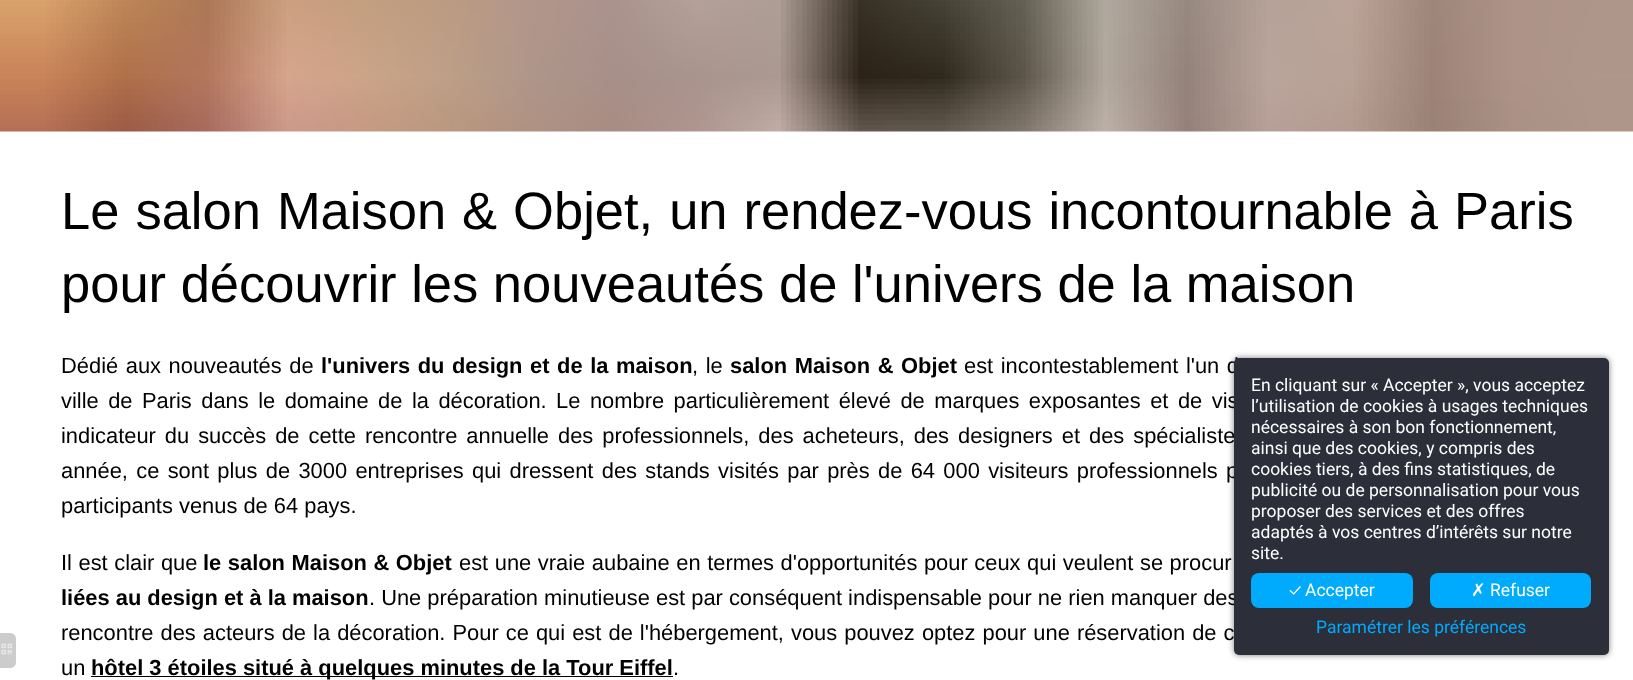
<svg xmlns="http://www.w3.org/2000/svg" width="1633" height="680">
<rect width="100%" height="100%" fill="#fff"/>
<image x="0" y="0" width="1633" height="132" href="media/1.png"/>
<text x="61" y="229" word-spacing="1.4" style="font-family:Liberation Sans;font-size:52.5px;fill:#000">Le salon Maison &amp; Objet, un rendez-vous incontournable à Paris</text>
<text x="61" y="302" style="font-family:Liberation Sans;font-size:52.5px;fill:#000">pour découvrir les nouveautés de l'univers de la maison</text>
<text x="61" y="373" word-spacing="1.5" style="font-family:Liberation Sans;font-size:21.88px;fill:#000">Dédié aux nouveautés de</text>
<text x="321" y="373" word-spacing="1.5" style="font-family:Liberation Sans;font-size:21.88px;font-weight:bold;fill:#000">l'univers du design et de la maison</text>
<text x="692" y="373" word-spacing="1.5" style="font-family:Liberation Sans;font-size:21.88px;fill:#000">, le</text>
<text x="730" y="373" word-spacing="1.5" style="font-family:Liberation Sans;font-size:21.88px;font-weight:bold;fill:#000">salon Maison &amp; Objet</text>
<text x="964" y="373" word-spacing="1.5" style="font-family:Liberation Sans;font-size:21.88px;fill:#000">est incontestablement l'un d</text>
<text x="61" y="408" word-spacing="3.4" style="font-family:Liberation Sans;font-size:21.88px;fill:#000">ville de Paris dans le domaine de la décoration. Le nombre particulièrement élevé de marques exposantes et de vis</text>
<text x="61" y="443" word-spacing="2.9" style="font-family:Liberation Sans;font-size:21.88px;fill:#000">indicateur du succès de cette rencontre annuelle des professionnels, des acheteurs, des designers et des spécialiste</text>
<text x="61" y="478" word-spacing="2.25" style="font-family:Liberation Sans;font-size:21.88px;fill:#000">année, ce sont plus de 3000 entreprises qui dressent des stands visités par près de 64 000 visiteurs professionnels p</text>
<text x="61" y="513" style="font-family:Liberation Sans;font-size:21.88px;fill:#000">participants venus de 64 pays.</text>
<text x="61" y="570" word-spacing="0.5" style="font-family:Liberation Sans;font-size:21.88px;fill:#000">Il est clair que</text>
<text x="203" y="570" word-spacing="0.5" style="font-family:Liberation Sans;font-size:21.88px;font-weight:bold;fill:#000">le salon Maison &amp; Objet</text>
<text x="459" y="570" word-spacing="0.5" style="font-family:Liberation Sans;font-size:21.88px;fill:#000">est une vraie aubaine en termes d'opportunités pour ceux qui veulent se procur</text>
<text x="61" y="605" style="font-family:Liberation Sans;font-size:21.88px;font-weight:bold;fill:#000">liées au design et à la maison</text>
<text x="369" y="605" style="font-family:Liberation Sans;font-size:21.88px;fill:#000">. Une préparation minutieuse est par conséquent indispensable pour ne rien manquer des</text>
<text x="61" y="640" word-spacing="1" style="font-family:Liberation Sans;font-size:21.88px;fill:#000">rencontre des acteurs de la décoration. Pour ce qui est de l'hébergement, vous pouvez optez pour une réservation de c</text>
<text x="61" y="675" style="font-family:Liberation Sans;font-size:21.88px;fill:#000">un</text>
<rect x="91" y="676" width="582" height="1" fill="#000"/>
<text x="91" y="675" style="font-family:Liberation Sans;font-size:21.88px;font-weight:bold;fill:#000">hôtel 3 étoiles situé à quelques minutes de la Tour Eiffel</text>
<text x="673" y="675" style="font-family:Liberation Sans;font-size:21.88px;fill:#000">.</text>
<rect x="1234" y="358" width="375" height="297" rx="5" fill="#00000080" filter="blur(3px)"/>
<rect x="1234" y="358" width="375" height="297" rx="5" fill="#2c2e3a"/>
<text x="1251" y="391" style="font-family:Roboto;font-size:17.5px;fill:#fff">En cliquant sur « Accepter », vous acceptez</text>
<text x="1251" y="412" style="font-family:Roboto;font-size:17.5px;fill:#fff">l’utilisation de cookies à usages techniques</text>
<text x="1251" y="433" style="font-family:Roboto;font-size:17.5px;fill:#fff">nécessaires à son bon fonctionnement,</text>
<text x="1251" y="454" style="font-family:Roboto;font-size:17.5px;fill:#fff">ainsi que des cookies, y compris des</text>
<text x="1251" y="475" style="font-family:Roboto;font-size:17.5px;fill:#fff">cookies tiers, à des fins statistiques, de</text>
<text x="1251" y="496" style="font-family:Roboto;font-size:17.5px;fill:#fff">publicité ou de personnalisation pour vous</text>
<text x="1251" y="517" style="font-family:Roboto;font-size:17.5px;fill:#fff">proposer des services et des offres</text>
<text x="1251" y="538" style="font-family:Roboto;font-size:17.5px;fill:#fff">adaptés à vos centres d’intérêts sur notre</text>
<text x="1251" y="559" style="font-family:Roboto;font-size:17.5px;fill:#fff">site.</text>
<rect x="1251" y="573" width="162" height="35" rx="8" fill="#00abfd"/>
<text x="1289" y="596" style="font-family:Ubuntu;font-size:17.5px;fill:#fff">✓</text>
<text x="1305" y="596" style="font-family:Roboto;font-size:17.5px;fill:#fff">Accepter</text>
<rect x="1430" y="573" width="161" height="35" rx="8" fill="#00abfd"/>
<text x="1471" y="596" style="font-family:DejaVu Sans;font-size:17.5px;fill:#fff">✗</text>
<text x="1490" y="596" style="font-family:Roboto;font-size:17.5px;fill:#fff">Refuser</text>
<text x="1316" y="633" style="font-family:Roboto;font-size:17.5px;fill:#00abfd">Paramétrer les préférences</text>
<path d="M0 633h10c3.5 0 6 2.5 6 6v23c0 3.5-2.5 6-6 6h-10z" fill="#ccc"/>
<image x="1" y="643" width="12" height="12" href="media/2.png"/>
</svg>
